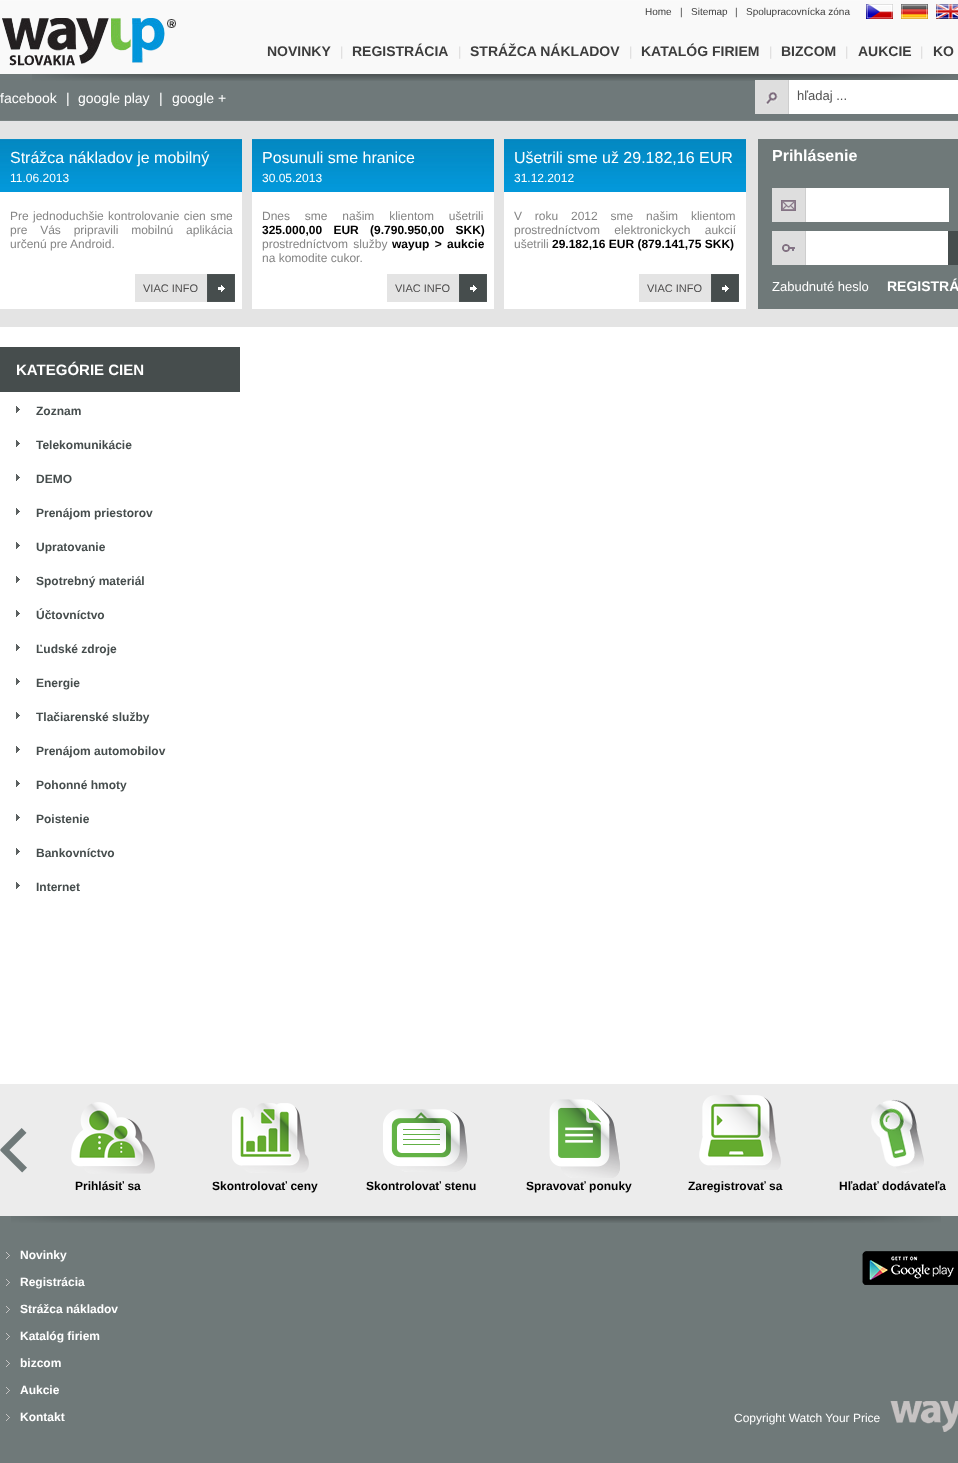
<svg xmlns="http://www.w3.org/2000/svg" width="958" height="1463">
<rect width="100%" height="100%" fill="#fff"/>
<image x="0" y="0" width="958" height="327" href="media/1.png"/>
<image x="32" y="74" width="926" height="7" href="media/2.png"/>
<text x="645" y="15" style="font-family:Liberation Sans;font-size:10px;fill:#3d3d3d">Home</text>
<text x="680" y="15" style="font-family:Liberation Sans;font-size:10px;fill:#464646">|</text>
<text x="691" y="15" style="font-family:Liberation Sans;font-size:10px;fill:#3d3d3d">Sitemap</text>
<text x="735" y="15" style="font-family:Liberation Sans;font-size:10px;fill:#464646">|</text>
<text x="746" y="15" style="font-family:Liberation Sans;font-size:10px;fill:#3d3d3d">Spolupracovnícka zóna</text>
<image x="866" y="4" width="27" height="15" href="media/3.png"/>
<image x="901" y="4" width="27" height="15" href="media/4.png"/>
<image x="936" y="4" width="22" height="15" href="media/5.png"/>
<image x="2" y="18" width="174" height="48" href="media/6.png"/>
<text x="267" y="56" style="font-family:Liberation Sans;font-size:14px;font-weight:bold;fill:#3d3d3d">NOVINKY</text>
<text x="340" y="56" style="font-family:Liberation Sans;font-size:13px;fill:#dddcdc">|</text>
<text x="352" y="56" style="font-family:Liberation Sans;font-size:14px;font-weight:bold;fill:#3d3d3d">REGISTRÁCIA</text>
<text x="458" y="56" style="font-family:Liberation Sans;font-size:13px;fill:#dddcdc">|</text>
<text x="470" y="56" style="font-family:Liberation Sans;font-size:14px;font-weight:bold;fill:#3d3d3d">STRÁŽCA NÁKLADOV</text>
<text x="629" y="56" style="font-family:Liberation Sans;font-size:13px;fill:#dddcdc">|</text>
<text x="641" y="56" style="font-family:Liberation Sans;font-size:14px;font-weight:bold;fill:#3d3d3d">KATALÓG FIRIEM</text>
<text x="769" y="56" style="font-family:Liberation Sans;font-size:13px;fill:#dddcdc">|</text>
<text x="781" y="56" style="font-family:Liberation Sans;font-size:14px;font-weight:bold;fill:#3d3d3d">BIZCOM</text>
<text x="845" y="56" style="font-family:Liberation Sans;font-size:13px;fill:#dddcdc">|</text>
<text x="858" y="56" style="font-family:Liberation Sans;font-size:14px;font-weight:bold;fill:#3d3d3d">AUKCIE</text>
<text x="920" y="56" style="font-family:Liberation Sans;font-size:13px;fill:#dddcdc">|</text>
<text x="933" y="56" style="font-family:Liberation Sans;font-size:14px;font-weight:bold;fill:#3d3d3d">KO</text>
<text x="0" y="103" style="font-family:Liberation Sans;font-size:14px;fill:#fff">facebook</text>
<text x="66" y="103" style="font-family:Liberation Sans;font-size:14px;fill:#fff">|</text>
<text x="78" y="103" style="font-family:Liberation Sans;font-size:14px;fill:#fff">google play</text>
<text x="159" y="103" style="font-family:Liberation Sans;font-size:14px;fill:#fff">|</text>
<text x="172" y="103" style="font-family:Liberation Sans;font-size:14px;fill:#fff">google +</text>
<rect x="789" y="80" width="169" height="34" fill="#fff"/>
<image x="755" y="80" width="34" height="34" href="media/7.png"/>
<text x="797" y="100" style="font-family:Liberation Sans;font-size:13px;fill:#535353">hľadaj ...</text>
<rect y="192" width="242" height="117" fill="#fff"/>
<image x="0" y="139" width="242" height="53" href="media/8.png"/>
<text x="10" y="163" style="font-family:Liberation Sans;font-size:16px;fill:#fff">Strážca nákladov je mobilný</text>
<text x="10" y="182" style="font-family:Liberation Sans;font-size:12px;fill:#fff">11.06.2013</text>
<text x="10" y="220" word-spacing="1" style="font-family:Liberation Sans;font-size:12px;fill:#858585">Pre jednoduchšie kontrolovanie cien sme</text>
<text x="10" y="234" word-spacing="9.5" style="font-family:Liberation Sans;font-size:12px;fill:#858585">pre Vás pripravili mobilnú aplikácia</text>
<text x="10" y="248" style="font-family:Liberation Sans;font-size:12px;fill:#858585">určenú pre Android.</text>
<rect x="135" y="274" width="72" height="28" fill="#e4e4e4"/>
<image x="207" y="274" width="28" height="28" href="media/9.png"/>
<text x="143" y="292" style="font-family:Liberation Sans;font-size:11px;fill:#4e4d4d">VIAC INFO</text>
<rect x="252" y="192" width="242" height="117" fill="#fff"/>
<image x="252" y="139" width="242" height="53" href="media/8.png"/>
<text x="262" y="163" style="font-family:Liberation Sans;font-size:16px;fill:#fff">Posunuli sme hranice</text>
<text x="262" y="182" style="font-family:Liberation Sans;font-size:12px;fill:#fff">30.05.2013</text>
<text x="262" y="220" word-spacing="11.5" style="font-family:Liberation Sans;font-size:12px;fill:#858585">Dnes sme našim klientom ušetrili</text>
<text x="262" y="234" word-spacing="8" style="font-family:Liberation Sans;font-size:12px;font-weight:bold;fill:#000">325.000,00 EUR (9.790.950,00 SKK)</text>
<text x="262" y="248" word-spacing="2" style="font-family:Liberation Sans;font-size:12px;fill:#858585">prostredníctvom služby</text>
<text x="392" y="248" word-spacing="2" style="font-family:Liberation Sans;font-size:12px;font-weight:bold;fill:#000">wayup &gt; aukcie</text>
<text x="262" y="262" style="font-family:Liberation Sans;font-size:12px;fill:#858585">na komodite cukor.</text>
<rect x="387" y="274" width="72" height="28" fill="#e4e4e4"/>
<image x="459" y="274" width="28" height="28" href="media/9.png"/>
<text x="395" y="292" style="font-family:Liberation Sans;font-size:11px;fill:#4e4d4d">VIAC INFO</text>
<rect x="504" y="192" width="242" height="117" fill="#fff"/>
<image x="504" y="139" width="242" height="53" href="media/8.png"/>
<text x="514" y="163" style="font-family:Liberation Sans;font-size:16px;fill:#fff">Ušetrili sme už 29.182,16 EUR</text>
<text x="514" y="182" style="font-family:Liberation Sans;font-size:12px;fill:#fff">31.12.2012</text>
<text x="514" y="220" word-spacing="9.5" style="font-family:Liberation Sans;font-size:12px;fill:#858585">V roku 2012 sme našim klientom</text>
<text x="514" y="234" word-spacing="11" style="font-family:Liberation Sans;font-size:12px;fill:#858585">prostredníctvom elektronickych aukcií</text>
<text x="514" y="248" style="font-family:Liberation Sans;font-size:12px;fill:#858585">ušetrili</text>
<text x="552" y="248" style="font-family:Liberation Sans;font-size:12px;font-weight:bold;fill:#000">29.182,16 EUR (879.141,75 SKK)</text>
<rect x="639" y="274" width="72" height="28" fill="#e4e4e4"/>
<image x="711" y="274" width="28" height="28" href="media/9.png"/>
<text x="647" y="292" style="font-family:Liberation Sans;font-size:11px;fill:#4e4d4d">VIAC INFO</text>
<rect x="758" y="139" width="200" height="170" fill="#6f7979"/>
<text x="772" y="161" style="font-family:Liberation Sans;font-size:16px;font-weight:bold;fill:#fff">Prihlásenie</text>
<image x="772" y="188" width="34" height="34" href="media/10.png"/>
<rect x="806" y="188" width="143" height="34" fill="#fff"/>
<image x="772" y="231" width="34" height="34" href="media/11.png"/>
<rect x="806" y="231" width="142" height="34" fill="#fff"/>
<rect x="948" y="231" width="10" height="34" fill="#464d4d"/>
<text x="772" y="291" style="font-family:Liberation Sans;font-size:13px;fill:#fff">Zabudnuté heslo</text>
<text x="887" y="291" style="font-family:Liberation Sans;font-size:14px;font-weight:bold;fill:#fff">REGISTRÁ</text>
<rect y="347" width="240" height="45" fill="#464d4d"/>
<text x="16" y="375" style="font-family:Liberation Sans;font-size:15px;font-weight:bold;fill:#fff">KATEGÓRIE CIEN</text>
<image x="16" y="406" width="4" height="7" href="media/12.png"/>
<text x="36" y="415" style="font-family:Liberation Sans;font-size:12px;font-weight:bold;fill:#464d4d">Zoznam</text>
<image x="16" y="440" width="4" height="7" href="media/12.png"/>
<text x="36" y="449" style="font-family:Liberation Sans;font-size:12px;font-weight:bold;fill:#464d4d">Telekomunikácie</text>
<image x="16" y="474" width="4" height="7" href="media/12.png"/>
<text x="36" y="483" style="font-family:Liberation Sans;font-size:12px;font-weight:bold;fill:#464d4d">DEMO</text>
<image x="16" y="508" width="4" height="7" href="media/12.png"/>
<text x="36" y="517" style="font-family:Liberation Sans;font-size:12px;font-weight:bold;fill:#464d4d">Prenájom priestorov</text>
<image x="16" y="542" width="4" height="7" href="media/12.png"/>
<text x="36" y="551" style="font-family:Liberation Sans;font-size:12px;font-weight:bold;fill:#464d4d">Upratovanie</text>
<image x="16" y="576" width="4" height="7" href="media/12.png"/>
<text x="36" y="585" style="font-family:Liberation Sans;font-size:12px;font-weight:bold;fill:#464d4d">Spotrebný materiál</text>
<image x="16" y="610" width="4" height="7" href="media/12.png"/>
<text x="36" y="619" style="font-family:Liberation Sans;font-size:12px;font-weight:bold;fill:#464d4d">Účtovníctvo</text>
<image x="16" y="644" width="4" height="7" href="media/12.png"/>
<text x="36" y="653" style="font-family:Liberation Sans;font-size:12px;font-weight:bold;fill:#464d4d">Ľudské zdroje</text>
<image x="16" y="678" width="4" height="7" href="media/12.png"/>
<text x="36" y="687" style="font-family:Liberation Sans;font-size:12px;font-weight:bold;fill:#464d4d">Energie</text>
<image x="16" y="712" width="4" height="7" href="media/12.png"/>
<text x="36" y="721" style="font-family:Liberation Sans;font-size:12px;font-weight:bold;fill:#464d4d">Tlačiarenské služby</text>
<image x="16" y="746" width="4" height="7" href="media/12.png"/>
<text x="36" y="755" style="font-family:Liberation Sans;font-size:12px;font-weight:bold;fill:#464d4d">Prenájom automobilov</text>
<image x="16" y="780" width="4" height="7" href="media/12.png"/>
<text x="36" y="789" style="font-family:Liberation Sans;font-size:12px;font-weight:bold;fill:#464d4d">Pohonné hmoty</text>
<image x="16" y="814" width="4" height="7" href="media/12.png"/>
<text x="36" y="823" style="font-family:Liberation Sans;font-size:12px;font-weight:bold;fill:#464d4d">Poistenie</text>
<image x="16" y="848" width="4" height="7" href="media/12.png"/>
<text x="36" y="857" style="font-family:Liberation Sans;font-size:12px;font-weight:bold;fill:#464d4d">Bankovníctvo</text>
<image x="16" y="882" width="4" height="7" href="media/12.png"/>
<text x="36" y="891" style="font-family:Liberation Sans;font-size:12px;font-weight:bold;fill:#464d4d">Internet</text>
<rect y="1084" width="958" height="132" fill="#ececec"/>
<image x="0" y="1128" width="27" height="45" href="media/13.png"/>
<image x="71" y="1102" width="84" height="72" href="media/14.png"/>
<text x="75" y="1190" style="font-family:Liberation Sans;font-size:12px;font-weight:bold;fill:#000">Prihlásiť sa</text>
<image x="232" y="1103" width="77" height="70" href="media/15.png"/>
<text x="212" y="1190" style="font-family:Liberation Sans;font-size:12px;font-weight:bold;fill:#000">Skontrolovať ceny</text>
<image x="383" y="1109" width="85" height="63" href="media/16.png"/>
<text x="366" y="1190" style="font-family:Liberation Sans;font-size:12px;font-weight:bold;fill:#000">Skontrolovať stenu</text>
<image x="549" y="1099" width="71" height="79" href="media/17.png"/>
<text x="526" y="1190" style="font-family:Liberation Sans;font-size:12px;font-weight:bold;fill:#000">Spravovať ponuky</text>
<image x="699" y="1095" width="82" height="75" href="media/18.png"/>
<text x="688" y="1190" style="font-family:Liberation Sans;font-size:12px;font-weight:bold;fill:#000">Zaregistrovať sa</text>
<image x="871" y="1099" width="53" height="74" href="media/19.png"/>
<text x="839" y="1190" style="font-family:Liberation Sans;font-size:12px;font-weight:bold;fill:#000">Hľadať dodávateľa</text>
<rect y="1216" width="958" height="247" fill="#6f7979"/>
<image x="11" y="1216" width="930" height="7" href="media/20.png"/>
<image x="890" y="1401" width="68" height="31" href="media/21.png"/>
<image x="6" y="1252" width="4" height="7" href="media/22.png"/>
<text x="20" y="1259" style="font-family:Liberation Sans;font-size:12px;font-weight:bold;fill:#fff">Novinky</text>
<image x="6" y="1279" width="4" height="7" href="media/22.png"/>
<text x="20" y="1286" style="font-family:Liberation Sans;font-size:12px;font-weight:bold;fill:#fff">Registrácia</text>
<image x="6" y="1306" width="4" height="7" href="media/22.png"/>
<text x="20" y="1313" style="font-family:Liberation Sans;font-size:12px;font-weight:bold;fill:#fff">Strážca nákladov</text>
<image x="6" y="1333" width="4" height="7" href="media/22.png"/>
<text x="20" y="1340" style="font-family:Liberation Sans;font-size:12px;font-weight:bold;fill:#fff">Katalóg firiem</text>
<image x="6" y="1360" width="4" height="7" href="media/22.png"/>
<text x="20" y="1367" style="font-family:Liberation Sans;font-size:12px;font-weight:bold;fill:#fff">bizcom</text>
<image x="6" y="1387" width="4" height="7" href="media/22.png"/>
<text x="20" y="1394" style="font-family:Liberation Sans;font-size:12px;font-weight:bold;fill:#fff">Aukcie</text>
<image x="6" y="1414" width="4" height="7" href="media/22.png"/>
<text x="20" y="1421" style="font-family:Liberation Sans;font-size:12px;font-weight:bold;fill:#fff">Kontakt</text>
<image x="862" y="1251" width="96" height="34" href="media/23.png"/>
<text x="734" y="1422" style="font-family:Liberation Sans;font-size:12px;fill:#fff">Copyright Watch Your Price</text>
</svg>
